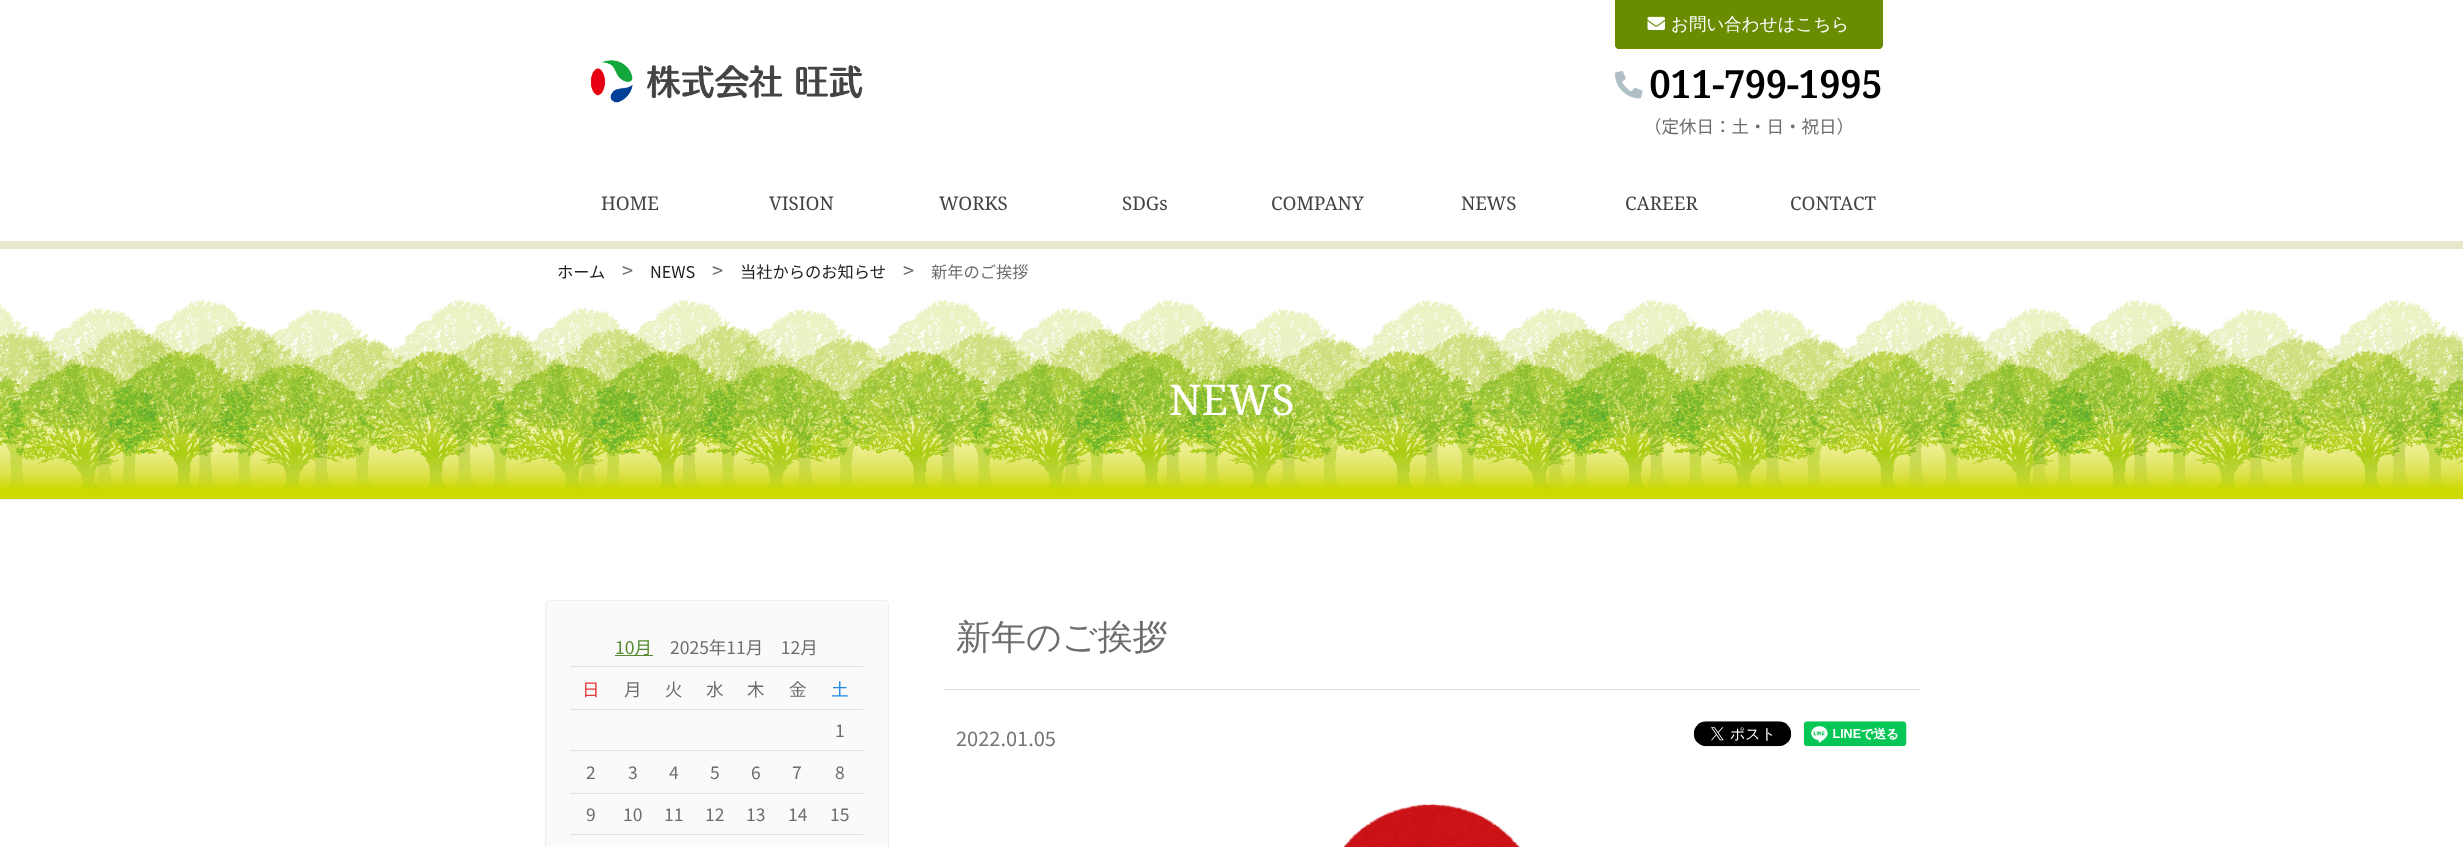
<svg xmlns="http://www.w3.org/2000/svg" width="2463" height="847">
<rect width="100%" height="100%" fill="#fff"/>
<image x="590" y="60" width="273" height="43" href="media/1.png"/>
<path d="M1615 0h268v45c0 2-2 4-4 4h-260c-2 0-4-2-4-4z" fill="#698c00"/>
<path d="M1615 0h267v45c0 2-1 4-3 4h-260c-2 0-4-2-4-4zm1 0h265v45c0 1-1 3-2 3h-260c-2 0-3-2-3-3z" fill="#698c00" fill-rule="evenodd"/>
<image x="1647" y="16" width="18" height="14" href="media/2.png"/>
<text x="1671" y="30" style="font-family:WenQuanYi Zen Hei;font-size:17.5px;font-weight:500;fill:#fff">お問い合わせはこちら</text>
<image x="1615" y="71" width="28" height="28" href="media/3.png"/>
<text x="1649" y="98" style="font-family:Noto Serif;font-size:37.5px;font-weight:bold;fill:#000">011-799-1995</text>
<text x="1644" y="133" style="font-family:Noto Sans JP;font-size:17.5px;fill:#6d6d6d">（定休日：土・日・祝日）</text>
<text x="601" y="210" style="font-family:Noto Serif;font-size:18.75px;fill:#444">HOME</text>
<text x="769" y="210" style="font-family:Noto Serif;font-size:18.75px;fill:#444">VISION</text>
<text x="939" y="210" style="font-family:Noto Serif;font-size:18.75px;fill:#444">WORKS</text>
<text x="1122" y="210" style="font-family:Noto Serif;font-size:18.75px;fill:#444">SDGs</text>
<text x="1271" y="210" style="font-family:Noto Serif;font-size:18.75px;fill:#444">COMPANY</text>
<text x="1461" y="210" style="font-family:Noto Serif;font-size:18.75px;fill:#444">NEWS</text>
<text x="1625" y="210" style="font-family:Noto Serif;font-size:18.75px;fill:#444">CAREER</text>
<text x="1790" y="210" style="font-family:Noto Serif;font-size:18.75px;fill:#444">CONTACT</text>
<rect y="241" width="2463" height="8" fill="#e8e7cc"/>
<text x="557" y="278" style="font-family:Noto Sans JP;font-size:16.25px;fill:#212121">ホーム</text>
<text x="622" y="278" style="font-family:Noto Sans JP;font-size:20px;fill:#6d6d6d">&gt;</text>
<text x="650" y="278" style="font-family:Noto Sans JP;font-size:16.25px;fill:#212121">NEWS</text>
<text x="712" y="278" style="font-family:Noto Sans JP;font-size:20px;fill:#6d6d6d">&gt;</text>
<text x="740" y="278" style="font-family:Noto Sans JP;font-size:16.25px;fill:#212121">当社からのお知らせ</text>
<text x="903" y="278" style="font-family:Noto Sans JP;font-size:20px;fill:#6d6d6d">&gt;</text>
<text x="931" y="278" style="font-family:Noto Sans JP;font-size:16.25px;fill:#6d6d6d">新年のご挨拶</text>
<image x="0" y="299" width="2463" height="200" href="media/4.png"/>
<rect y="499" width="2463" height="1" fill="#eee"/>
<text x="1169" y="415" style="font-family:Noto Serif;font-size:42.5px;fill:#fff">NEWS</text>
<rect x="545.5" y="600.5" width="343" height="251" rx="3.5" fill="#fafafa" stroke="#eee"/>
<rect x="570" y="666" width="293" height="1" fill="#e0e0e0"/>
<rect x="615" y="655" width="38" height="1" fill="#558b2f"/>
<text x="615" y="654" style="font-family:Noto Sans JP;font-size:17.5px;fill:#558b2f">10月</text>
<text x="670" y="654" style="font-family:Noto Sans JP;font-size:17.5px;fill:#6d6d6d">2025年11月　12月</text>
<rect x="570" y="709" width="293" height="1" fill="#e0e0e0"/>
<text x="582" y="696" style="font-family:Noto Sans JP;font-size:17.5px;fill:#e53935">日</text>
<text x="624" y="696" style="font-family:Noto Sans JP;font-size:17.5px;fill:#6d6d6d">月</text>
<text x="665" y="696" style="font-family:Noto Sans JP;font-size:17.5px;fill:#6d6d6d">火</text>
<text x="706" y="696" style="font-family:Noto Sans JP;font-size:17.5px;fill:#6d6d6d">水</text>
<text x="747" y="696" style="font-family:Noto Sans JP;font-size:17.5px;fill:#6d6d6d">木</text>
<text x="789" y="696" style="font-family:Noto Sans JP;font-size:17.5px;fill:#6d6d6d">金</text>
<text x="831" y="696" style="font-family:Noto Sans JP;font-size:17.5px;fill:#1e88e5">土</text>
<rect x="570" y="750" width="293" height="1" fill="#e0e0e0"/>
<text x="835" y="737" style="font-family:Noto Sans JP;font-size:17.5px;fill:#6d6d6d">1</text>
<rect x="570" y="793" width="293" height="1" fill="#e0e0e0"/>
<text x="586" y="779" style="font-family:Noto Sans JP;font-size:17.5px;fill:#6d6d6d">2</text>
<text x="628" y="779" style="font-family:Noto Sans JP;font-size:17.5px;fill:#6d6d6d">3</text>
<text x="669" y="779" style="font-family:Noto Sans JP;font-size:17.5px;fill:#6d6d6d">4</text>
<text x="710" y="779" style="font-family:Noto Sans JP;font-size:17.5px;fill:#6d6d6d">5</text>
<text x="751" y="779" style="font-family:Noto Sans JP;font-size:17.5px;fill:#6d6d6d">6</text>
<text x="792" y="779" style="font-family:Noto Sans JP;font-size:17.5px;fill:#6d6d6d">7</text>
<text x="835" y="779" style="font-family:Noto Sans JP;font-size:17.5px;fill:#6d6d6d">8</text>
<rect x="570" y="834" width="293" height="1" fill="#e0e0e0"/>
<text x="586" y="821" style="font-family:Noto Sans JP;font-size:17.5px;fill:#6d6d6d">9</text>
<text x="623" y="821" style="font-family:Noto Sans JP;font-size:17.5px;fill:#6d6d6d">10</text>
<text x="664" y="821" style="font-family:Noto Sans JP;font-size:17.5px;fill:#6d6d6d">11</text>
<text x="705" y="821" style="font-family:Noto Sans JP;font-size:17.5px;fill:#6d6d6d">12</text>
<text x="746" y="821" style="font-family:Noto Sans JP;font-size:17.5px;fill:#6d6d6d">13</text>
<text x="788" y="821" style="font-family:Noto Sans JP;font-size:17.5px;fill:#6d6d6d">14</text>
<text x="830" y="821" style="font-family:Noto Sans JP;font-size:17.5px;fill:#6d6d6d">15</text>
<rect x="944" y="689" width="976" height="1" fill="#e0e0e0"/>
<text x="956" y="649" style="font-family:WenQuanYi Zen Hei;font-size:35px;font-weight:500;fill:#6d6d6d">新年のご挨拶</text>
<text x="956" y="746" style="font-family:Noto Sans JP;font-size:20px;fill:#757575">2022.01.05</text>
<image x="1693" y="721" width="99" height="26" href="media/5.png"/>
<image x="1803" y="721" width="104" height="26" href="media/6.png"/>
<image x="1343" y="803" width="177" height="44" href="media/7.png"/>
</svg>
